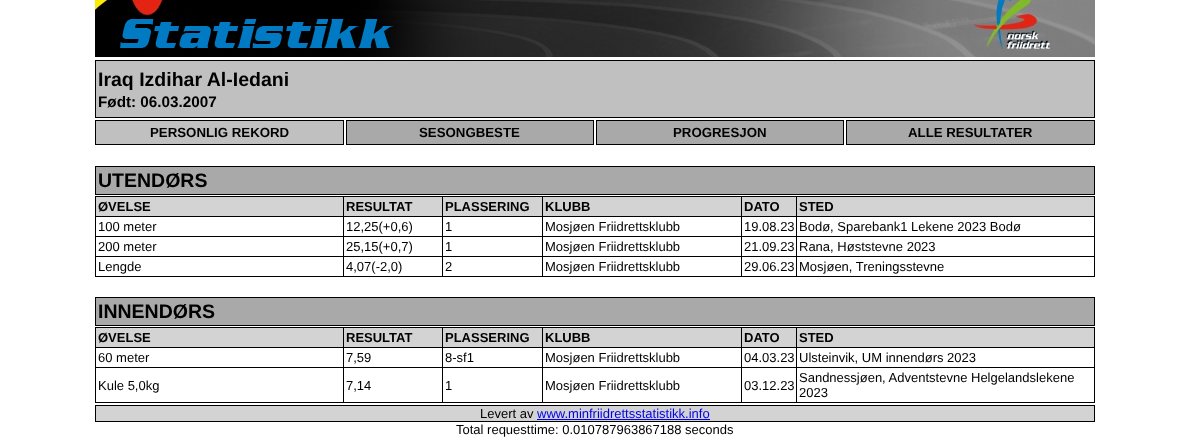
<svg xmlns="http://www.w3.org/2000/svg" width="1190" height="445">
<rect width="100%" height="100%" fill="#fff"/>
<image x="95" y="0" width="1000" height="57" href="media/1.png"/>
<rect x="95.5" y="60.5" width="999" height="57" fill="#c0c0c0" stroke="#000"/>
<text x="98" y="86" style="font-family:Liberation Sans;font-size:19.5px;font-weight:bold;fill:#000">Iraq Izdihar Al-Iedani</text>
<text x="98" y="107" style="font-family:Liberation Sans;font-size:15.25px;font-weight:bold;fill:#000">Født: 06.03.2007</text>
<rect x="95.5" y="120.5" width="248" height="24" fill="#c0c0c0" stroke="#000"/>
<text x="150" y="137" style="font-family:Liberation Sans;font-size:13.25px;font-weight:bold;fill:#000">PERSONLIG REKORD</text>
<rect x="346.5" y="120.5" width="247" height="24" fill="#a9a9a9" stroke="#000"/>
<text x="419" y="137" style="font-family:Liberation Sans;font-size:13.25px;font-weight:bold;fill:#000">SESONGBESTE</text>
<rect x="596.5" y="120.5" width="247" height="24" fill="#a9a9a9" stroke="#000"/>
<text x="673" y="137" style="font-family:Liberation Sans;font-size:13.25px;font-weight:bold;fill:#000">PROGRESJON</text>
<rect x="846.5" y="120.5" width="248" height="24" fill="#a9a9a9" stroke="#000"/>
<text x="908" y="137" style="font-family:Liberation Sans;font-size:13.25px;font-weight:bold;fill:#000">ALLE RESULTATER</text>
<rect x="95.5" y="166.5" width="999" height="28" fill="#a9a9a9" stroke="#000"/>
<text x="98" y="187" style="font-family:Liberation Sans;font-size:19.5px;font-weight:bold;fill:#000">UTENDØRS</text>
<rect x="96" y="197" width="247" height="19" fill="#d3d3d3"/>
<rect x="796" y="196" width="299" height="1" fill="#000"/>
<rect x="796" y="216" width="299" height="1" fill="#000"/>
<rect x="796" y="236" width="299" height="1" fill="#000"/>
<rect x="796" y="256" width="299" height="1" fill="#000"/>
<rect x="1094" y="256" width="1" height="21" fill="#000"/>
<rect x="796" y="276" width="299" height="1" fill="#000"/>
<rect x="796" y="256" width="1" height="21" fill="#000"/>
<rect x="741" y="256" width="56" height="1" fill="#000"/>
<rect x="796" y="236" width="1" height="21" fill="#000"/>
<rect x="741" y="236" width="56" height="1" fill="#000"/>
<rect x="796" y="216" width="1" height="21" fill="#000"/>
<rect x="741" y="216" width="56" height="1" fill="#000"/>
<rect x="796" y="196" width="1" height="21" fill="#000"/>
<rect x="741" y="196" width="56" height="1" fill="#000"/>
<rect x="741" y="276" width="56" height="1" fill="#000"/>
<rect x="741" y="256" width="1" height="21" fill="#000"/>
<rect x="542" y="256" width="200" height="1" fill="#000"/>
<rect x="741" y="236" width="1" height="21" fill="#000"/>
<rect x="542" y="236" width="200" height="1" fill="#000"/>
<rect x="741" y="216" width="1" height="21" fill="#000"/>
<rect x="542" y="216" width="200" height="1" fill="#000"/>
<rect x="741" y="196" width="1" height="21" fill="#000"/>
<rect x="542" y="196" width="200" height="1" fill="#000"/>
<rect x="542" y="276" width="200" height="1" fill="#000"/>
<rect x="542" y="256" width="1" height="21" fill="#000"/>
<rect x="442" y="256" width="101" height="1" fill="#000"/>
<rect x="542" y="236" width="1" height="21" fill="#000"/>
<rect x="442" y="236" width="101" height="1" fill="#000"/>
<rect x="542" y="216" width="1" height="21" fill="#000"/>
<rect x="442" y="216" width="101" height="1" fill="#000"/>
<rect x="542" y="196" width="1" height="21" fill="#000"/>
<rect x="442" y="196" width="101" height="1" fill="#000"/>
<rect x="442" y="276" width="101" height="1" fill="#000"/>
<rect x="442" y="256" width="1" height="21" fill="#000"/>
<rect x="343" y="256" width="100" height="1" fill="#000"/>
<rect x="442" y="236" width="1" height="21" fill="#000"/>
<rect x="343" y="236" width="100" height="1" fill="#000"/>
<rect x="442" y="216" width="1" height="21" fill="#000"/>
<rect x="343" y="216" width="100" height="1" fill="#000"/>
<rect x="442" y="196" width="1" height="21" fill="#000"/>
<rect x="343" y="196" width="100" height="1" fill="#000"/>
<rect x="343" y="276" width="100" height="1" fill="#000"/>
<rect x="343" y="256" width="1" height="21" fill="#000"/>
<rect x="95" y="256" width="249" height="1" fill="#000"/>
<rect x="343" y="236" width="1" height="21" fill="#000"/>
<rect x="95" y="236" width="249" height="1" fill="#000"/>
<rect x="343" y="216" width="1" height="21" fill="#000"/>
<rect x="95" y="216" width="249" height="1" fill="#000"/>
<rect x="343" y="196" width="1" height="21" fill="#000"/>
<rect x="95" y="196" width="249" height="1" fill="#000"/>
<rect x="95" y="276" width="249" height="1" fill="#000"/>
<rect x="95" y="256" width="1" height="21" fill="#000"/>
<rect x="95" y="236" width="1" height="21" fill="#000"/>
<rect x="95" y="216" width="1" height="21" fill="#000"/>
<rect x="95" y="196" width="1" height="21" fill="#000"/>
<text x="98" y="211" style="font-family:Liberation Sans;font-size:13px;font-weight:bold;fill:#000">ØVELSE</text>
<rect x="344" y="197" width="98" height="19" fill="#d3d3d3"/>
<text x="346" y="211" style="font-family:Liberation Sans;font-size:13px;font-weight:bold;fill:#000">RESULTAT</text>
<rect x="443" y="197" width="99" height="19" fill="#d3d3d3"/>
<text x="445" y="211" style="font-family:Liberation Sans;font-size:13px;font-weight:bold;fill:#000">PLASSERING</text>
<rect x="543" y="197" width="198" height="19" fill="#d3d3d3"/>
<text x="545" y="211" style="font-family:Liberation Sans;font-size:13px;font-weight:bold;fill:#000">KLUBB</text>
<rect x="742" y="197" width="54" height="19" fill="#d3d3d3"/>
<text x="744" y="211" style="font-family:Liberation Sans;font-size:13px;font-weight:bold;fill:#000">DATO</text>
<rect x="797" y="197" width="297" height="19" fill="#d3d3d3"/>
<rect x="1094" y="236" width="1" height="21" fill="#000"/>
<rect x="1094" y="216" width="1" height="21" fill="#000"/>
<rect x="1094" y="196" width="1" height="21" fill="#000"/>
<text x="799" y="211" style="font-family:Liberation Sans;font-size:13px;font-weight:bold;fill:#000">STED</text>
<text x="98" y="231" style="font-family:Liberation Sans;font-size:13px;fill:#000">100 meter</text>
<text x="346" y="231" style="font-family:Liberation Sans;font-size:13px;fill:#000">12,25(+0,6)</text>
<text x="445" y="231" style="font-family:Liberation Sans;font-size:13px;fill:#000">1</text>
<text x="545" y="231" style="font-family:Liberation Sans;font-size:13px;fill:#000">Mosjøen Friidrettsklubb</text>
<text x="744" y="231" style="font-family:Liberation Sans;font-size:13px;fill:#000">19.08.23</text>
<text x="799" y="231" style="font-family:Liberation Sans;font-size:13px;fill:#000">Bodø, Sparebank1 Lekene 2023 Bodø</text>
<text x="98" y="251" style="font-family:Liberation Sans;font-size:13px;fill:#000">200 meter</text>
<text x="346" y="251" style="font-family:Liberation Sans;font-size:13px;fill:#000">25,15(+0,7)</text>
<text x="445" y="251" style="font-family:Liberation Sans;font-size:13px;fill:#000">1</text>
<text x="545" y="251" style="font-family:Liberation Sans;font-size:13px;fill:#000">Mosjøen Friidrettsklubb</text>
<text x="744" y="251" style="font-family:Liberation Sans;font-size:13px;fill:#000">21.09.23</text>
<text x="799" y="251" style="font-family:Liberation Sans;font-size:13px;fill:#000">Rana, Høststevne 2023</text>
<text x="98" y="271" style="font-family:Liberation Sans;font-size:13px;fill:#000">Lengde</text>
<text x="346" y="271" style="font-family:Liberation Sans;font-size:13px;fill:#000">4,07(-2,0)</text>
<text x="445" y="271" style="font-family:Liberation Sans;font-size:13px;fill:#000">2</text>
<text x="545" y="271" style="font-family:Liberation Sans;font-size:13px;fill:#000">Mosjøen Friidrettsklubb</text>
<text x="744" y="271" style="font-family:Liberation Sans;font-size:13px;fill:#000">29.06.23</text>
<text x="799" y="271" style="font-family:Liberation Sans;font-size:13px;fill:#000">Mosjøen, Treningsstevne</text>
<rect x="95.5" y="297.5" width="999" height="28" fill="#a9a9a9" stroke="#000"/>
<text x="98" y="318" style="font-family:Liberation Sans;font-size:19.5px;font-weight:bold;fill:#000">INNENDØRS</text>
<rect x="96" y="328" width="247" height="19" fill="#d3d3d3"/>
<rect x="796" y="327" width="299" height="1" fill="#000"/>
<rect x="796" y="347" width="299" height="1" fill="#000"/>
<rect x="796" y="367" width="299" height="1" fill="#000"/>
<rect x="1094" y="367" width="1" height="36" fill="#000"/>
<rect x="796" y="402" width="299" height="1" fill="#000"/>
<rect x="796" y="367" width="1" height="36" fill="#000"/>
<rect x="741" y="367" width="56" height="1" fill="#000"/>
<rect x="796" y="347" width="1" height="21" fill="#000"/>
<rect x="741" y="347" width="56" height="1" fill="#000"/>
<rect x="796" y="327" width="1" height="21" fill="#000"/>
<rect x="741" y="327" width="56" height="1" fill="#000"/>
<rect x="741" y="402" width="56" height="1" fill="#000"/>
<rect x="741" y="367" width="1" height="36" fill="#000"/>
<rect x="542" y="367" width="200" height="1" fill="#000"/>
<rect x="741" y="347" width="1" height="21" fill="#000"/>
<rect x="542" y="347" width="200" height="1" fill="#000"/>
<rect x="741" y="327" width="1" height="21" fill="#000"/>
<rect x="542" y="327" width="200" height="1" fill="#000"/>
<rect x="542" y="402" width="200" height="1" fill="#000"/>
<rect x="542" y="367" width="1" height="36" fill="#000"/>
<rect x="442" y="367" width="101" height="1" fill="#000"/>
<rect x="542" y="347" width="1" height="21" fill="#000"/>
<rect x="442" y="347" width="101" height="1" fill="#000"/>
<rect x="542" y="327" width="1" height="21" fill="#000"/>
<rect x="442" y="327" width="101" height="1" fill="#000"/>
<rect x="442" y="402" width="101" height="1" fill="#000"/>
<rect x="442" y="367" width="1" height="36" fill="#000"/>
<rect x="343" y="367" width="100" height="1" fill="#000"/>
<rect x="442" y="347" width="1" height="21" fill="#000"/>
<rect x="343" y="347" width="100" height="1" fill="#000"/>
<rect x="442" y="327" width="1" height="21" fill="#000"/>
<rect x="343" y="327" width="100" height="1" fill="#000"/>
<rect x="343" y="402" width="100" height="1" fill="#000"/>
<rect x="343" y="367" width="1" height="36" fill="#000"/>
<rect x="95" y="367" width="249" height="1" fill="#000"/>
<rect x="343" y="347" width="1" height="21" fill="#000"/>
<rect x="95" y="347" width="249" height="1" fill="#000"/>
<rect x="343" y="327" width="1" height="21" fill="#000"/>
<rect x="95" y="327" width="249" height="1" fill="#000"/>
<rect x="95" y="402" width="249" height="1" fill="#000"/>
<rect x="95" y="367" width="1" height="36" fill="#000"/>
<rect x="95" y="347" width="1" height="21" fill="#000"/>
<rect x="95" y="327" width="1" height="21" fill="#000"/>
<text x="98" y="342" style="font-family:Liberation Sans;font-size:13px;font-weight:bold;fill:#000">ØVELSE</text>
<rect x="344" y="328" width="98" height="19" fill="#d3d3d3"/>
<text x="346" y="342" style="font-family:Liberation Sans;font-size:13px;font-weight:bold;fill:#000">RESULTAT</text>
<rect x="443" y="328" width="99" height="19" fill="#d3d3d3"/>
<text x="445" y="342" style="font-family:Liberation Sans;font-size:13px;font-weight:bold;fill:#000">PLASSERING</text>
<rect x="543" y="328" width="198" height="19" fill="#d3d3d3"/>
<text x="545" y="342" style="font-family:Liberation Sans;font-size:13px;font-weight:bold;fill:#000">KLUBB</text>
<rect x="742" y="328" width="54" height="19" fill="#d3d3d3"/>
<text x="744" y="342" style="font-family:Liberation Sans;font-size:13px;font-weight:bold;fill:#000">DATO</text>
<rect x="797" y="328" width="297" height="19" fill="#d3d3d3"/>
<rect x="1094" y="347" width="1" height="21" fill="#000"/>
<rect x="1094" y="327" width="1" height="21" fill="#000"/>
<text x="799" y="342" style="font-family:Liberation Sans;font-size:13px;font-weight:bold;fill:#000">STED</text>
<text x="98" y="362" style="font-family:Liberation Sans;font-size:13px;fill:#000">60 meter</text>
<text x="346" y="362" style="font-family:Liberation Sans;font-size:13px;fill:#000">7,59</text>
<text x="445" y="362" style="font-family:Liberation Sans;font-size:13px;fill:#000">8-sf1</text>
<text x="545" y="362" style="font-family:Liberation Sans;font-size:13px;fill:#000">Mosjøen Friidrettsklubb</text>
<text x="744" y="362" style="font-family:Liberation Sans;font-size:13px;fill:#000">04.03.23</text>
<text x="799" y="362" style="font-family:Liberation Sans;font-size:13px;fill:#000">Ulsteinvik, UM innendørs 2023</text>
<text x="98" y="390" style="font-family:Liberation Sans;font-size:13px;fill:#000">Kule 5,0kg</text>
<text x="346" y="390" style="font-family:Liberation Sans;font-size:13px;fill:#000">7,14</text>
<text x="445" y="390" style="font-family:Liberation Sans;font-size:13px;fill:#000">1</text>
<text x="545" y="390" style="font-family:Liberation Sans;font-size:13px;fill:#000">Mosjøen Friidrettsklubb</text>
<text x="744" y="390" style="font-family:Liberation Sans;font-size:13px;fill:#000">03.12.23</text>
<text x="799" y="382" style="font-family:Liberation Sans;font-size:13px;fill:#000">Sandnessjøen, Adventstevne Helgelandslekene</text>
<text x="799" y="397" style="font-family:Liberation Sans;font-size:13px;fill:#000">2023</text>
<rect x="95.5" y="405.5" width="999" height="16" fill="#d3d3d3" stroke="#000"/>
<text x="480" y="418" style="font-family:Liberation Sans;font-size:13px;fill:#000">Levert av</text>
<text x="537" y="418" style="font-family:Liberation Sans;font-size:13px;fill:#00e">www.minfriidrettsstatistikk.info</text>
<rect x="537" y="419" width="173" height="1" fill="#00e"/>
<text x="456" y="434" style="font-family:Liberation Sans;font-size:13px;fill:#000">Total requesttime: 0.010787963867188 seconds</text>
</svg>
